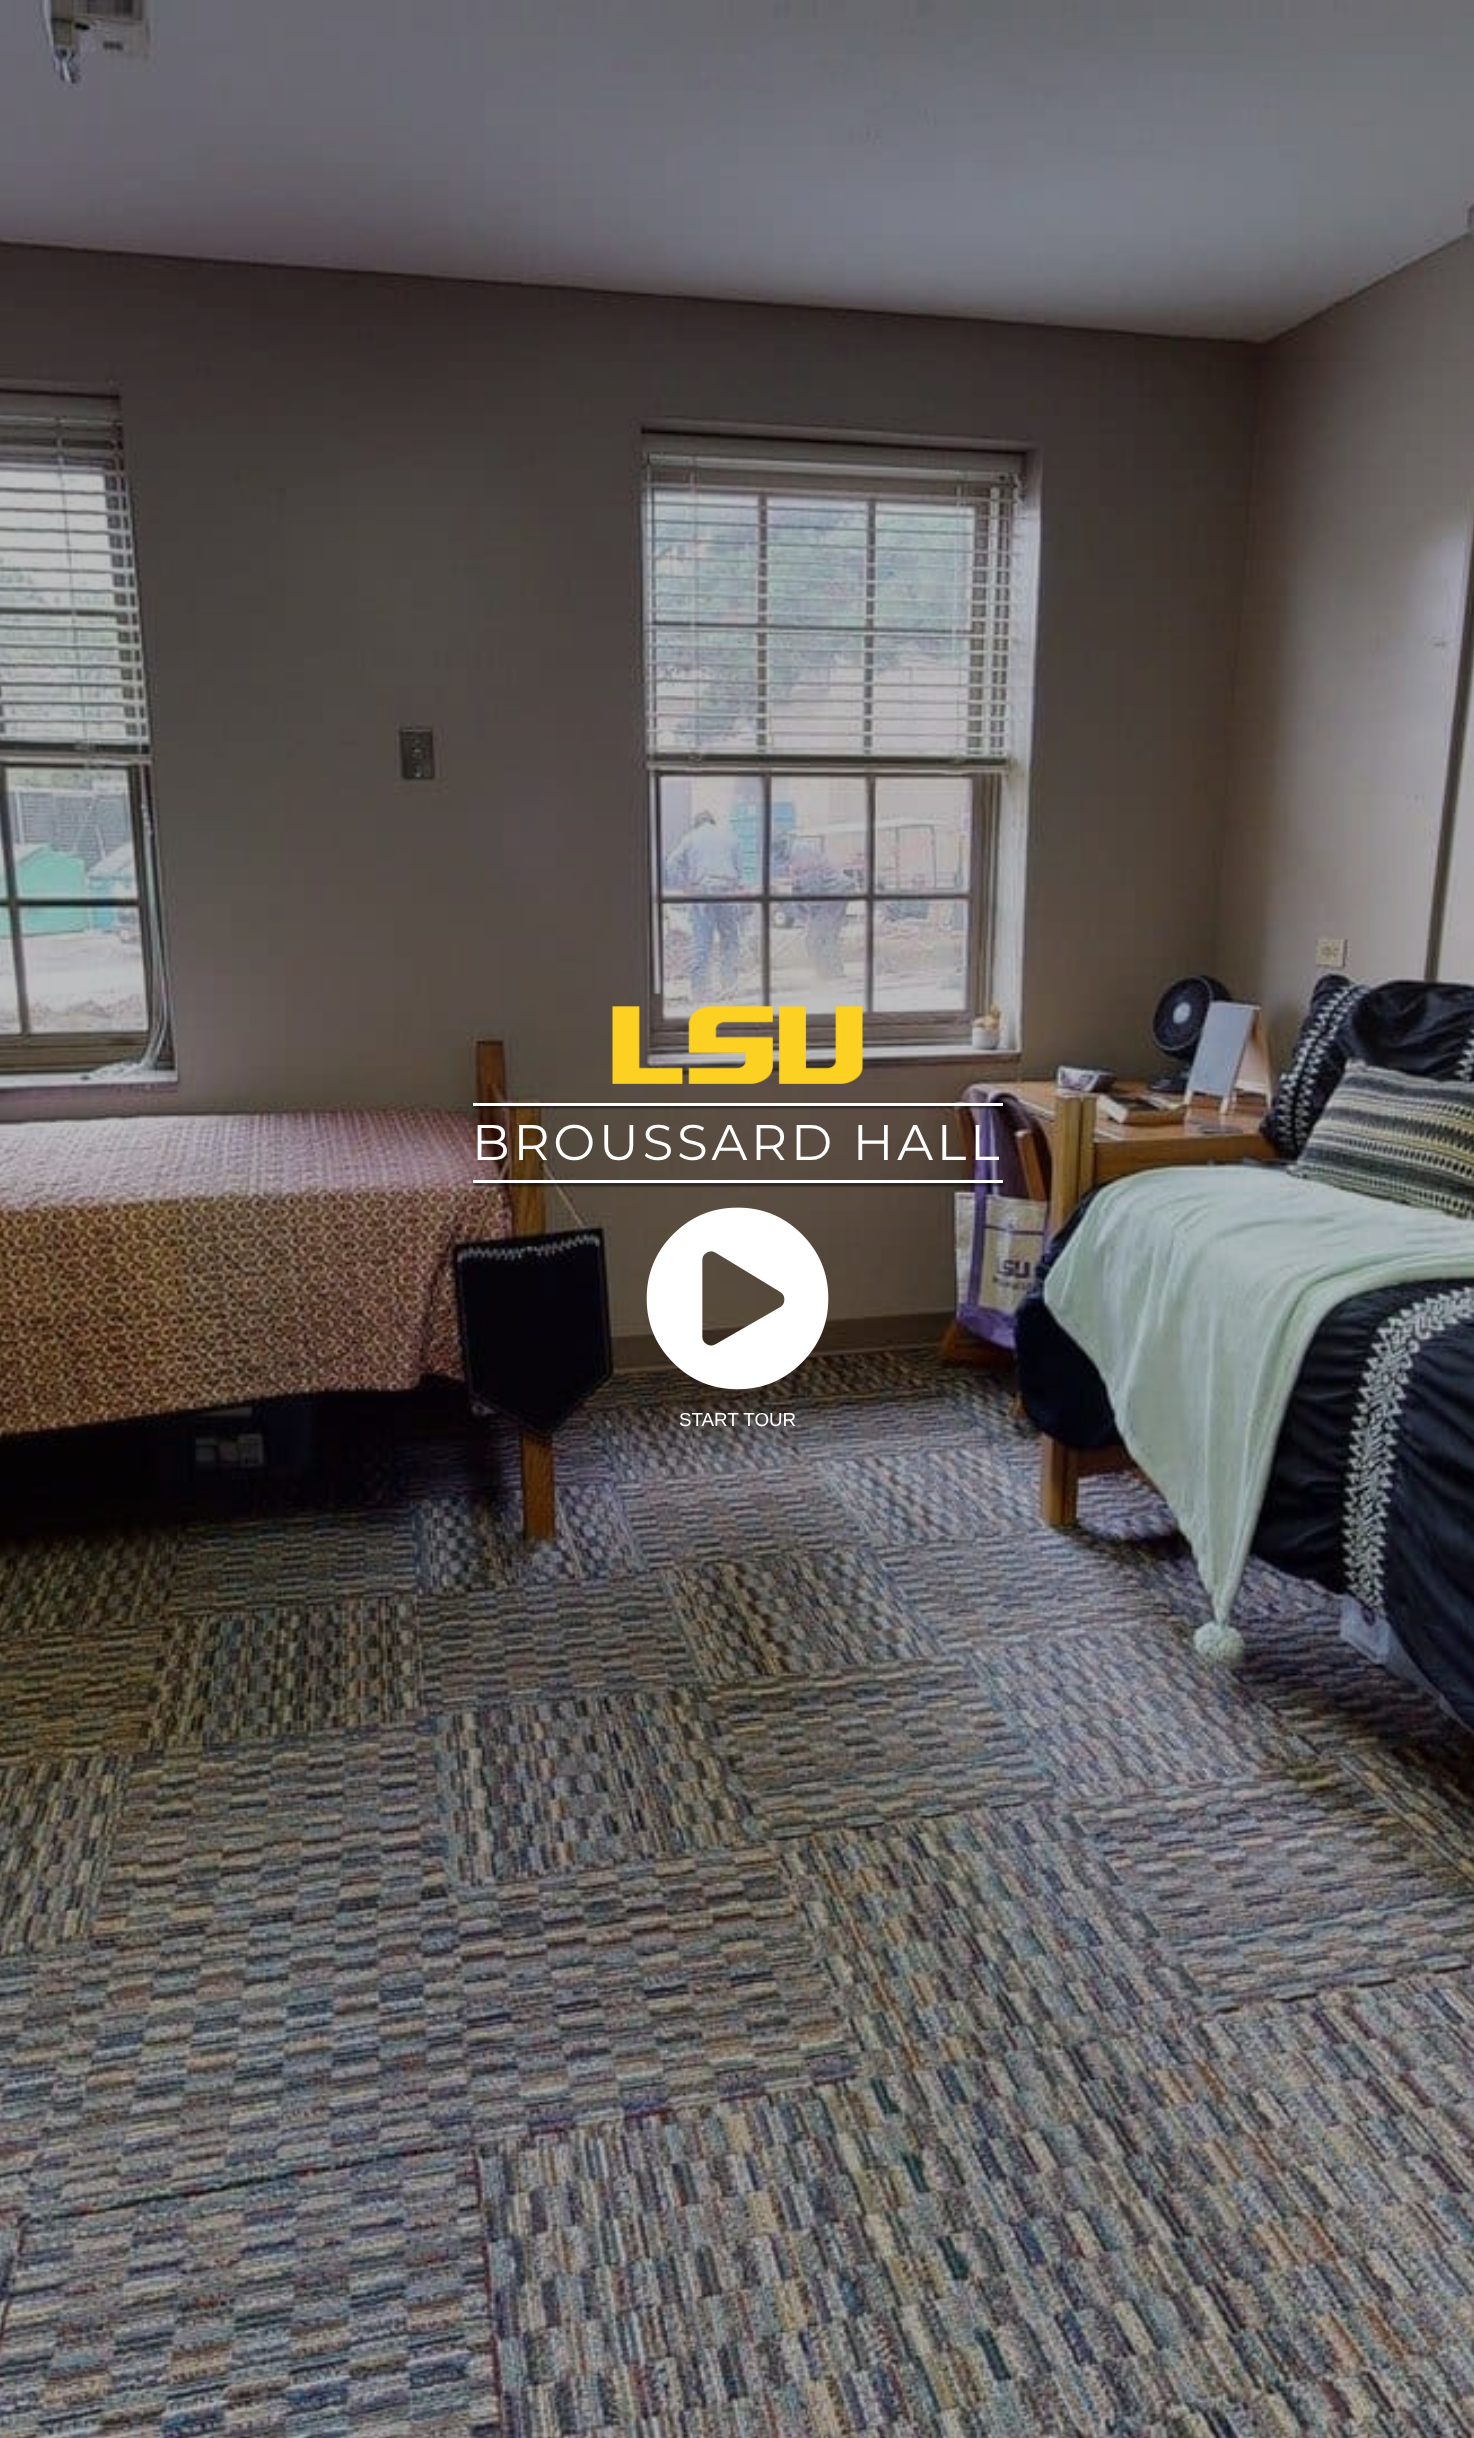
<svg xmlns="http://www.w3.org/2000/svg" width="1474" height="2438">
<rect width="100%" height="100%" fill="#fff"/>
<image x="0" y="0" width="1474" height="2438" href="media/1.png"/>
<image x="612" y="1006" width="251" height="78" href="media/2.png"/>
<rect x="474" y="1105" width="530" height="3" fill="#00000099" filter="blur(1px)"/>
<rect x="473" y="1103" width="530" height="3" fill="#fff"/>
<text x="472" y="1160" style="font-family:Montserrat;font-size:50px;letter-spacing:3.75px;fill:#fff">BROUSSARD HALL</text>
<rect x="474" y="1183" width="530" height="3" fill="#00000099" filter="blur(1px)"/>
<rect x="473" y="1180" width="530" height="3" fill="#fff"/>
<image x="646" y="1207" width="183" height="183" href="media/3.png"/>
<text x="679" y="1426" style="font-family:Liberation Sans;font-size:18.75px;fill:#fff">START TOUR</text>
</svg>
